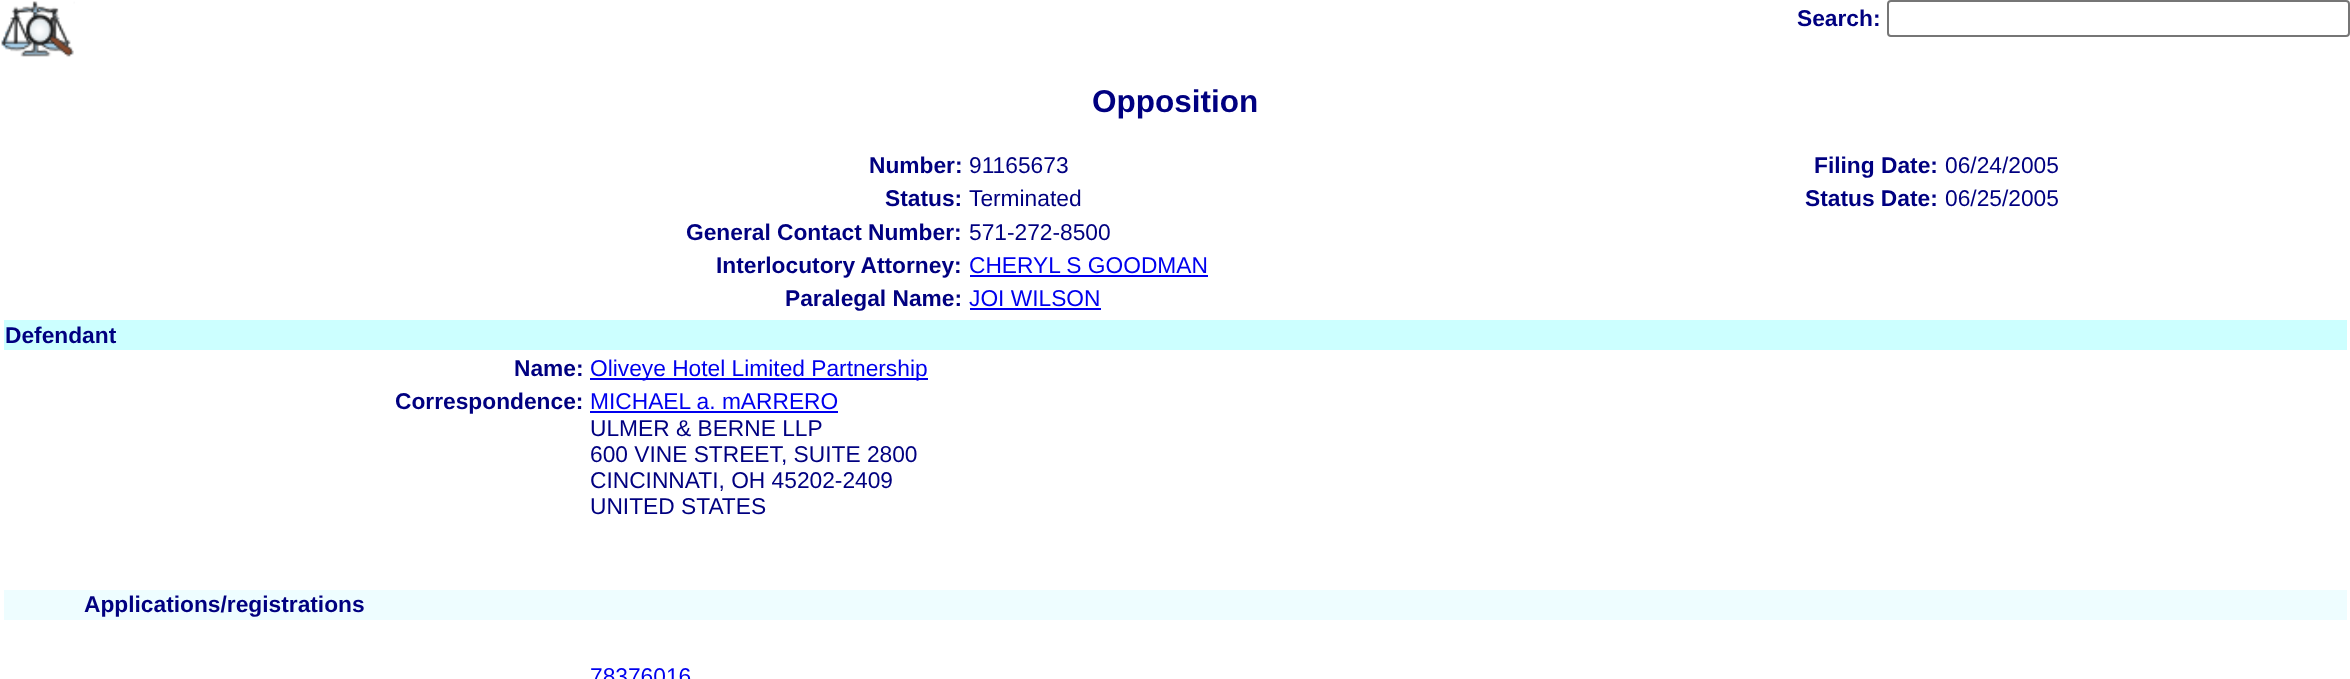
<svg xmlns="http://www.w3.org/2000/svg" width="2350" height="679">
<rect width="100%" height="100%" fill="#fff"/>
<image x="1" y="1" width="74" height="56" href="media/1.png"/>
<text x="1797" y="26" style="font-family:Liberation Sans;font-size:22.75px;font-weight:bold;fill:#000080">Search:</text>
<rect x="1888" y="1" width="461" height="35" rx="3" fill="none" stroke="#767676" stroke-width="2"/>
<text x="1092" y="112" style="font-family:Liberation Sans;font-size:31.5px;font-weight:bold;fill:#000080">Opposition</text>
<text x="869" y="173" style="font-family:Liberation Sans;font-size:22.75px;font-weight:bold;fill:#000080">Number:</text>
<text x="969" y="173" style="font-family:Liberation Sans;font-size:22.75px;fill:#000080">91165673</text>
<text x="1814" y="173" style="font-family:Liberation Sans;font-size:22.75px;font-weight:bold;fill:#000080">Filing Date:</text>
<text x="1945" y="173" style="font-family:Liberation Sans;font-size:22.75px;fill:#000080">06/24/2005</text>
<text x="885" y="206" style="font-family:Liberation Sans;font-size:22.75px;font-weight:bold;fill:#000080">Status:</text>
<text x="969" y="206" style="font-family:Liberation Sans;font-size:22.75px;fill:#000080">Terminated</text>
<text x="1805" y="206" style="font-family:Liberation Sans;font-size:22.75px;font-weight:bold;fill:#000080">Status Date:</text>
<text x="1945" y="206" style="font-family:Liberation Sans;font-size:22.75px;fill:#000080">06/25/2005</text>
<text x="686" y="240" style="font-family:Liberation Sans;font-size:22.75px;font-weight:bold;fill:#000080">General Contact Number:</text>
<text x="969" y="240" style="font-family:Liberation Sans;font-size:22.75px;fill:#000080">571-272-8500</text>
<text x="716" y="273" style="font-family:Liberation Sans;font-size:22.75px;font-weight:bold;fill:#000080">Interlocutory Attorney:</text>
<text x="969" y="273" style="font-family:Liberation Sans;font-size:22.75px;fill:#00e">CHERYL S GOODMAN</text>
<rect x="970" y="275" width="238" height="2" fill="#00e"/>
<text x="785" y="306" style="font-family:Liberation Sans;font-size:22.75px;font-weight:bold;fill:#000080">Paralegal Name:</text>
<text x="969" y="306" style="font-family:Liberation Sans;font-size:22.75px;fill:#00e">JOI WILSON</text>
<rect x="970" y="308" width="131" height="2" fill="#00e"/>
<rect x="4" y="320" width="2343" height="30" fill="#cff"/>
<text x="5" y="343" style="font-family:Liberation Sans;font-size:22.75px;font-weight:bold;fill:#000080">Defendant</text>
<text x="514" y="376" style="font-family:Liberation Sans;font-size:22.75px;font-weight:bold;fill:#000080">Name:</text>
<rect x="590" y="378" width="338" height="2" fill="#00e"/>
<text x="590" y="376" style="font-family:Liberation Sans;font-size:22.75px;fill:#00e">Oliveye Hotel Limited Partnership</text>
<text x="395" y="409" style="font-family:Liberation Sans;font-size:22.75px;font-weight:bold;fill:#000080">Correspondence:</text>
<text x="590" y="409" style="font-family:Liberation Sans;font-size:22.75px;fill:#00e">MICHAEL a. mARRERO</text>
<rect x="590" y="411" width="248" height="2" fill="#00e"/>
<text x="590" y="436" style="font-family:Liberation Sans;font-size:22.75px;fill:#000080">ULMER &amp; BERNE LLP</text>
<text x="590" y="462" style="font-family:Liberation Sans;font-size:22.75px;fill:#000080">600 VINE STREET, SUITE 2800</text>
<text x="590" y="488" style="font-family:Liberation Sans;font-size:22.75px;fill:#000080">CINCINNATI, OH 45202-2409</text>
<text x="590" y="514" style="font-family:Liberation Sans;font-size:22.75px;fill:#000080">UNITED STATES</text>
<rect x="4" y="590" width="2343" height="30" fill="#eefdff"/>
<text x="84" y="612" style="font-family:Liberation Sans;font-size:22.75px;font-weight:bold;fill:#000080">Applications/registrations</text>
<text x="590" y="684" style="font-family:Liberation Sans;font-size:22.75px;fill:#00e">78376016</text>
</svg>
